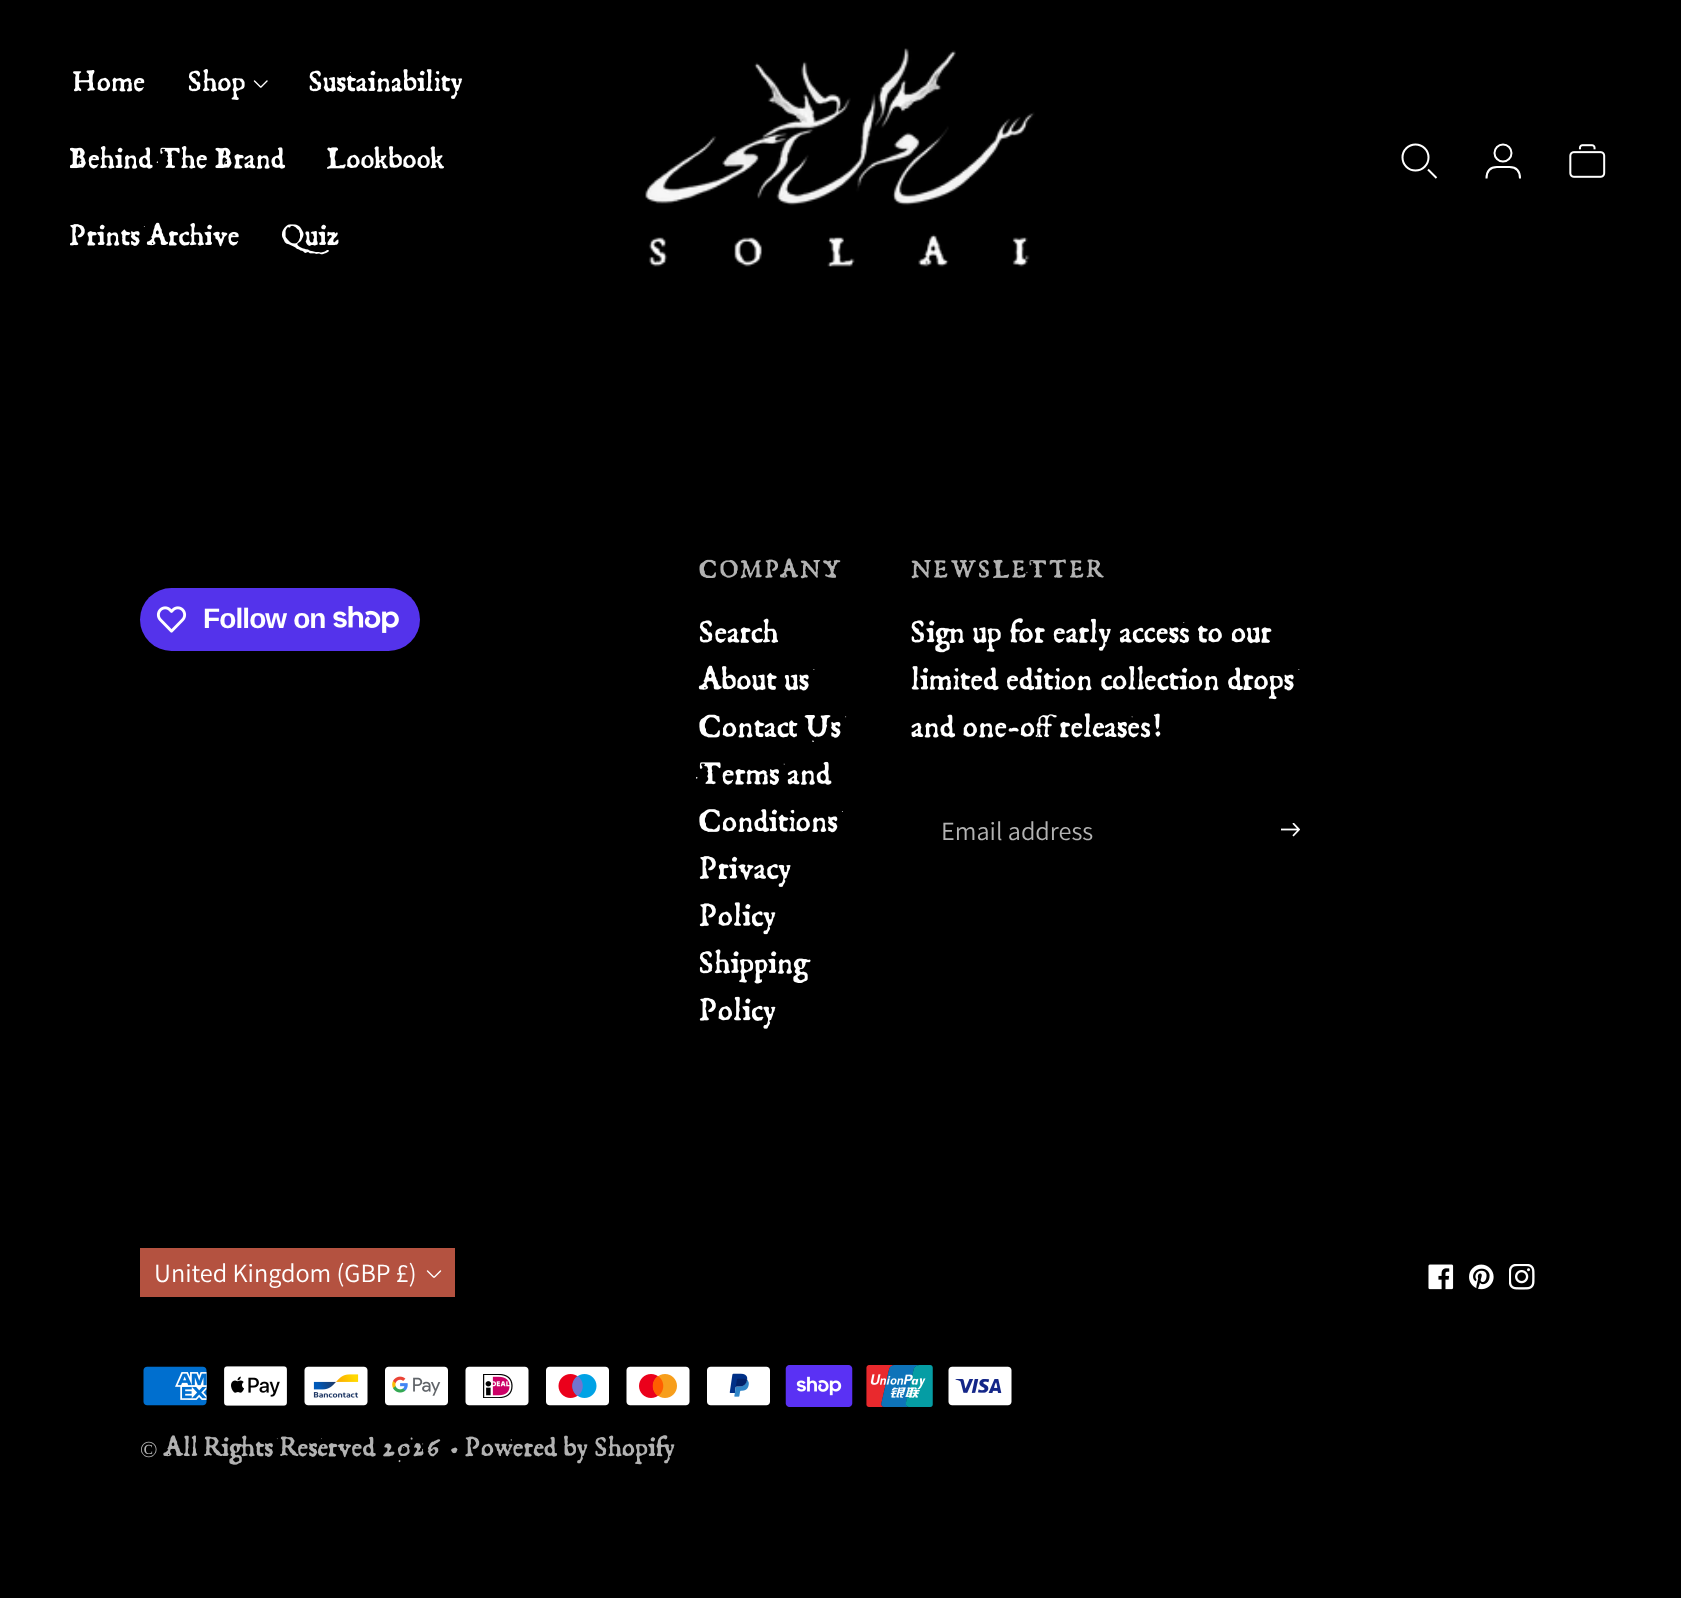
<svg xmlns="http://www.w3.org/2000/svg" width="1681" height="1598">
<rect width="100%" height="100%" fill="#000"/>
<image x="73" y="70" width="72" height="22" href="media/1.png"/>
<image x="188" y="69" width="57" height="31" href="media/2.png"/>
<path d="M254.5 81l6 6h.5l6-6" fill="none" stroke="#fff" stroke-width="1.4" stroke-linecap="round" stroke-linejoin="round"/>
<image x="309" y="69" width="154" height="30" href="media/3.png"/>
<image x="70" y="146" width="216" height="23" href="media/4.png"/>
<image x="327" y="146" width="117" height="23" href="media/5.png"/>
<image x="70" y="222" width="169" height="25" href="media/6.png"/>
<image x="281" y="224" width="58" height="31" href="media/7.png"/>
<image x="645" y="48" width="390" height="219" href="media/8.png"/>
<circle cx="1415.5" cy="157.5" r="13" fill="none" stroke="#fff" stroke-width="2"/>
<path d="M1428 169.5l8.5 8.5" fill="none" stroke="#fff" stroke-width="2"/>
<circle cx="1503" cy="153" r="8.5" fill="none" stroke="#fff" stroke-width="2"/>
<path d="M1486.5 178.5c0-6.5 3-11.5 10.5-11.5h12.5c7.5 0 10.5 5 10.5 11.5" fill="none" stroke="#fff" stroke-width="2"/>
<image x="1569" y="144" width="37" height="34" href="media/9.png"/>
<rect x="140" y="588" width="280" height="63" rx="31.5" fill="#5433eb"/>
<image x="156" y="606" width="31" height="27" href="media/10.png"/>
<text x="203" y="628" style="font-family:Liberation Sans;font-size:28px;font-weight:bold;letter-spacing:-0.9px;fill:#fff">Follow on</text>
<image x="333" y="606" width="66" height="27" href="media/11.png"/>
<image x="699" y="558" width="142" height="21" href="media/12.png"/>
<image x="699" y="618" width="80" height="25" href="media/13.png"/>
<image x="698" y="665" width="117" height="26" href="media/14.png"/>
<image x="699" y="714" width="148" height="28" href="media/15.png"/>
<image x="696" y="761" width="136" height="24" href="media/16.png"/>
<image x="699" y="809" width="144" height="24" href="media/17.png"/>
<image x="699" y="856" width="92" height="31" href="media/18.png"/>
<image x="699" y="902" width="77" height="33" href="media/19.png"/>
<image x="699" y="949" width="112" height="35" href="media/20.png"/>
<image x="699" y="996" width="77" height="33" href="media/21.png"/>
<image x="911" y="559" width="193" height="20" href="media/22.png"/>
<image x="911" y="618" width="361" height="35" href="media/23.png"/>
<image x="911" y="665" width="389" height="35" href="media/24.png"/>
<image x="911" y="713" width="250" height="25" href="media/25.png"/>
<text x="941" y="840" style="font-family:Assistant;font-size:26.25px;fill:#b3b3b3">Email address</text>
<image x="1281" y="823" width="19" height="14" href="media/26.png"/>
<rect x="140" y="1248" width="315" height="49" fill="#b45240"/>
<text x="154" y="1282" style="font-family:Assistant;font-size:26.25px;fill:#fff">United Kingdom (GBP £)</text>
<path d="M427.5 1271l6 6h1l6-6" fill="none" stroke="#fff" stroke-width="1.4" stroke-linecap="round" stroke-linejoin="round"/>
<image x="1428" y="1264" width="26" height="26" href="media/27.png"/>
<image x="1469" y="1264" width="25" height="26" href="media/28.png"/>
<image x="1509" y="1264" width="26" height="26" href="media/29.png"/>
<image x="143" y="1366" width="64" height="40" href="media/30.png"/>
<image x="224" y="1366" width="63" height="40" href="media/31.png"/>
<image x="304" y="1366" width="64" height="40" href="media/32.png"/>
<image x="385" y="1366" width="63" height="40" href="media/33.png"/>
<image x="465" y="1366" width="64" height="40" href="media/34.png"/>
<image x="546" y="1366" width="63" height="40" href="media/35.png"/>
<image x="626" y="1366" width="64" height="40" href="media/36.png"/>
<image x="707" y="1366" width="63" height="40" href="media/37.png"/>
<image x="785" y="1365" width="68" height="42" href="media/38.png"/>
<image x="866" y="1365" width="67" height="42" href="media/39.png"/>
<image x="948" y="1366" width="64" height="40" href="media/40.png"/>
<text x="140" y="1457" style="font-family:Liberation Serif;font-size:23px;fill:#b3b3b3">©</text>
<image x="163" y="1435" width="213" height="30" href="media/41.png"/>
<image x="383" y="1437" width="75" height="26" href="media/42.png"/>
<image x="465" y="1435" width="210" height="30" href="media/43.png"/>
</svg>
